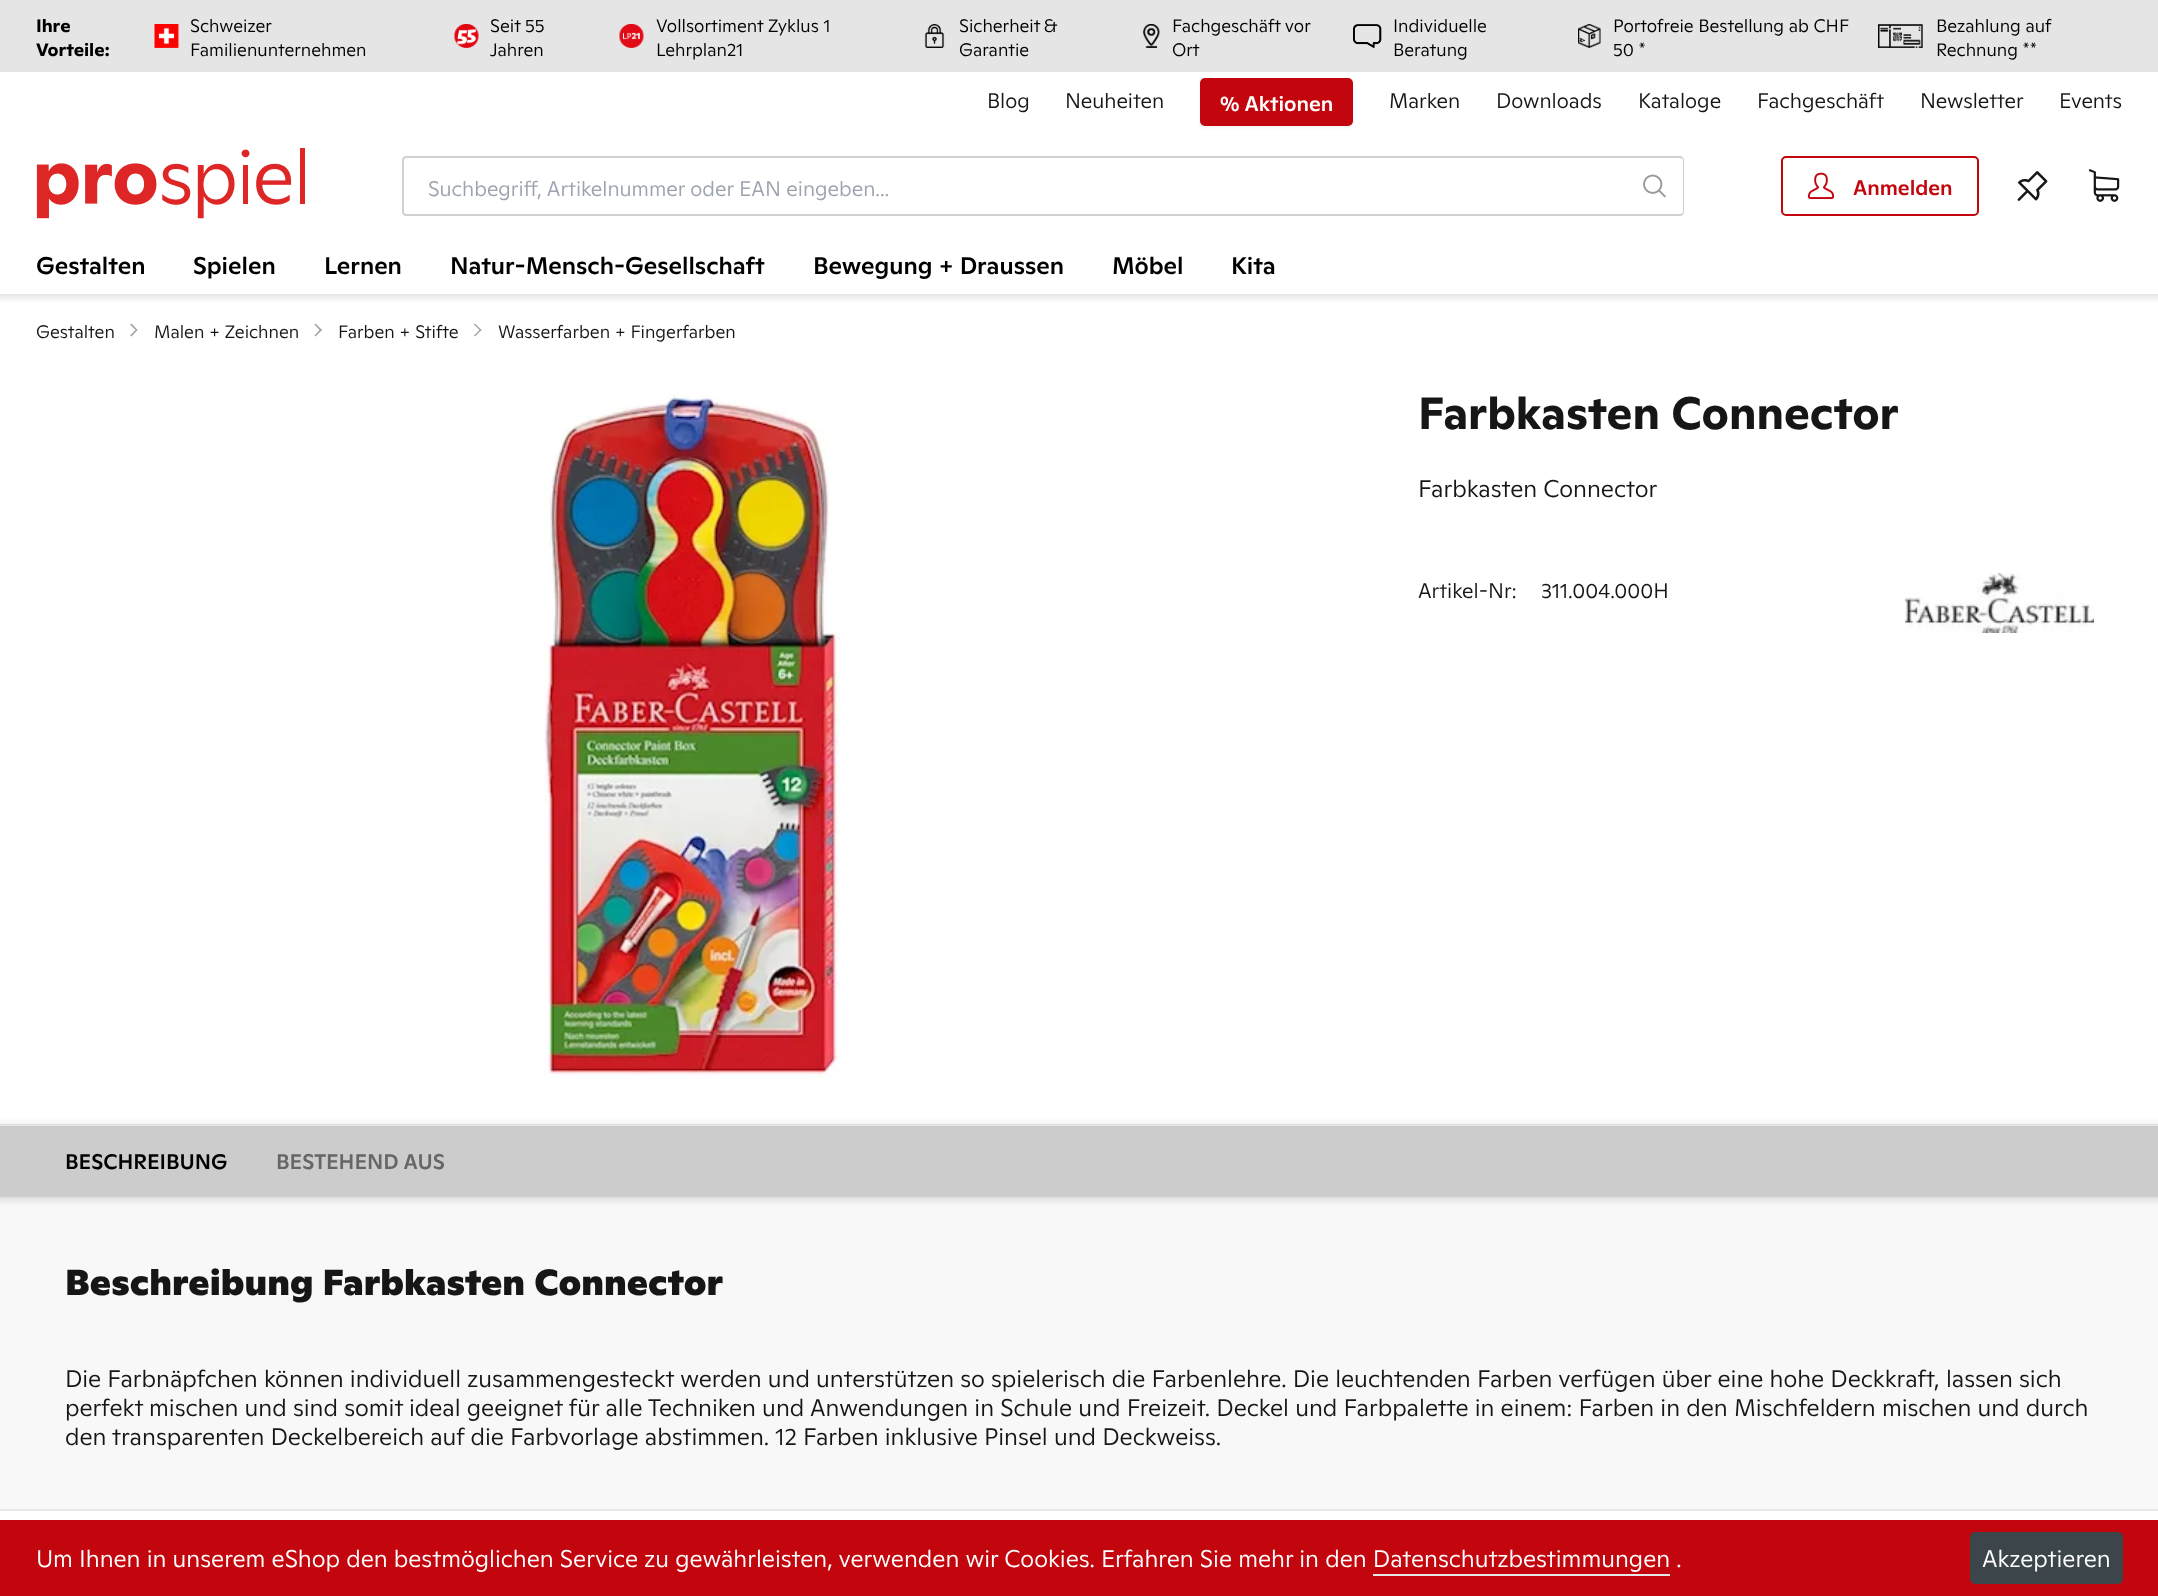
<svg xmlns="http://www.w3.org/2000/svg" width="2158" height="1596">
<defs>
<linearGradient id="g1" gradientUnits="userSpaceOnUse" x1="1079" y1="294" x2="1079" y2="303"><stop offset="0" stop-color="#e6e6e6"/><stop offset="1" stop-color="#fff"/></linearGradient>
<linearGradient id="g2" gradientUnits="userSpaceOnUse" x1="1079" y1="1125" x2="1079" y2="1116"><stop offset="0" stop-color="#999" stop-opacity="0.1"/><stop offset="1" stop-color="#999" stop-opacity="0"/></linearGradient>
<linearGradient id="g3" gradientUnits="userSpaceOnUse" x1="1079" y1="1197" x2="1079" y2="1206"><stop offset="0" stop-color="#dfdfdf"/><stop offset="1" stop-color="#f8f8f8"/></linearGradient>
</defs>
<rect width="100%" height="100%" fill="#e5e5e5"/>
<text x="36" y="32" style="font-family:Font;font-size:18px;font-weight:bold;fill:#000">Ihre</text>
<text x="36" y="56" style="font-family:Font;font-size:18px;font-weight:bold;fill:#000">Vorteile:</text>
<image x="154" y="24" width="25" height="24" href="media/1.png"/>
<text x="190" y="32" style="font-family:Font;font-size:18px;font-weight:300;fill:#000">Schweizer</text>
<image x="454" y="24" width="25" height="24" href="media/2.png"/>
<text x="490" y="32" style="font-family:Font;font-size:18px;font-weight:300;fill:#000">Seit 55</text>
<image x="619" y="24" width="25" height="24" href="media/3.png"/>
<text x="656" y="32" style="font-family:Font;font-size:18px;font-weight:300;fill:#000">Vollsortiment Zyklus 1</text>
<image x="924" y="24" width="21" height="24" href="media/4.png"/>
<text x="959" y="32" word-spacing="-1" style="font-family:Font;font-size:18px;font-weight:300;fill:#000">Sicherheit &amp;</text>
<image x="1143" y="24" width="17" height="24" href="media/5.png"/>
<text x="1172" y="32" style="font-family:Font;font-size:18px;font-weight:300;fill:#000">Fachgeschäft vor</text>
<image x="1353" y="24" width="29" height="24" href="media/6.png"/>
<text x="1393" y="32" style="font-family:Font;font-size:18px;font-weight:300;fill:#000">Individuelle</text>
<image x="1578" y="24" width="23" height="24" href="media/7.png"/>
<text x="1613" y="32" style="font-family:Font;font-size:18px;font-weight:300;fill:#000">Portofreie Bestellung ab CHF</text>
<text x="1613" y="56" style="font-family:Font;font-size:18px;font-weight:300;fill:#000">50 *</text>
<image x="1878" y="24" width="45" height="24" href="media/8.png"/>
<text x="1936" y="32" style="font-family:Font;font-size:18px;font-weight:300;fill:#000">Bezahlung auf</text>
<text x="1936" y="56" style="font-family:Font;font-size:18px;font-weight:300;fill:#000">Rechnung **</text>
<text x="190" y="56" style="font-family:Font;font-size:18px;font-weight:300;fill:#000">Familienunternehmen</text>
<text x="490" y="56" style="font-family:Font;font-size:18px;font-weight:300;fill:#000">Jahren</text>
<text x="656" y="56" style="font-family:Font;font-size:18px;font-weight:300;fill:#000">Lehrplan21</text>
<text x="959" y="56" style="font-family:Font;font-size:18px;font-weight:300;fill:#000">Garantie</text>
<text x="1172" y="56" style="font-family:Font;font-size:18px;font-weight:300;fill:#000">Ort</text>
<text x="1393" y="56" style="font-family:Font;font-size:18px;font-weight:300;fill:#000">Beratung</text>
<rect y="72" width="2158" height="222" fill="#fff"/>
<text x="987" y="108" style="font-family:Font;font-size:21px;font-weight:300;fill:#161616">Blog</text>
<text x="1065" y="108" style="font-family:Font;font-size:21px;font-weight:300;fill:#161616">Neuheiten</text>
<rect x="1200" y="80" width="153" height="48" rx="5" fill="#0000000d" filter="blur(1.5px)"/>
<rect x="1201" y="79" width="151" height="46" rx="4" fill="#c3050d" stroke="#c3050d" stroke-width="2"/>
<text x="1220" y="111" style="font-family:Font;font-size:21px;font-weight:500;fill:#fff">% Aktionen</text>
<text x="1389" y="108" style="font-family:Font;font-size:21px;font-weight:300;fill:#161616">Marken</text>
<text x="1496" y="108" style="font-family:Font;font-size:21px;font-weight:300;fill:#161616">Downloads</text>
<text x="1638" y="108" style="font-family:Font;font-size:21px;font-weight:300;fill:#161616">Kataloge</text>
<text x="1757" y="108" style="font-family:Font;font-size:21px;font-weight:300;fill:#161616">Fachgeschäft</text>
<text x="1920" y="108" style="font-family:Font;font-size:21px;font-weight:300;fill:#161616">Newsletter</text>
<text x="2059" y="108" style="font-family:Font;font-size:21px;font-weight:300;fill:#161616">Events</text>
<image x="36" y="148" width="269" height="71" href="media/9.png"/>
<path d="M406 156h1222v60h-1222c-2 0-4-2-4-4v-52c0-2 2-4 4-4zm0 2h1222v56h-1222c-1 0-2-1-2-2v-52c0-1 1-2 2-2z" fill="#d0d0d0" fill-rule="evenodd"/>
<text x="428" y="196" style="font-family:Font;font-size:21px;font-weight:300;fill:#9ca3af">Suchbegriff, Artikelnummer oder EAN eingeben...</text>
<path d="M1626 156h54c3 0 5 2 5 5v50c0 3-2 5-5 5h-54z" fill="#fff"/>
<path d="M1626 156h54c2 0 4 2 4 4v52c0 2-2 4-4 4h-54zm0 2h54c2 0 3 1 3 2v52c0 1-1 2-3 2h-54z" fill="#d0d0d0" fill-rule="evenodd"/>
<image x="1643" y="174" width="23" height="24" href="media/10.png"/>
<rect x="1782" y="157" width="196" height="58" rx="4" fill="none" stroke="#c3050d" stroke-width="2"/>
<image x="1807" y="172" width="28" height="27" href="media/11.png"/>
<text x="1853" y="195" style="font-family:Font;font-size:21px;font-weight:500;fill:#c3050d">Anmelden</text>
<image x="2017" y="171" width="31" height="30" href="media/12.png"/>
<image x="2088" y="169" width="32" height="33" href="media/13.png"/>
<text x="36" y="274" style="font-family:Font;font-size:24px;font-weight:500;fill:#000">Gestalten</text>
<text x="193" y="274" style="font-family:Font;font-size:24px;font-weight:500;fill:#000">Spielen</text>
<text x="324" y="274" style="font-family:Font;font-size:24px;font-weight:500;fill:#000">Lernen</text>
<text x="450" y="274" style="font-family:Font;font-size:24px;font-weight:500;fill:#000">Natur-Mensch-Gesellschaft</text>
<text x="813" y="274" style="font-family:Font;font-size:24px;font-weight:500;fill:#000">Bewegung + Draussen</text>
<text x="1112" y="274" style="font-family:Font;font-size:24px;font-weight:500;fill:#000">Möbel</text>
<text x="1231" y="274" style="font-family:Font;font-size:24px;font-weight:500;fill:#000">Kita</text>
<rect y="295" width="2158" height="8" fill="url(#g1)"/>
<rect y="303" width="2158" height="1217" fill="#fff"/>
<text x="36" y="338" style="font-family:Font;font-size:18px;font-weight:300;fill:#161616">Gestalten</text>
<path d="M131.5 323.5l6 6.5l-1 1l-6.5-6.5z" fill="#a2a2a2"/>
<path d="M136.5 329l1 1l-6 6.5l-1.5-1z" fill="#a2a2a2"/>
<text x="154" y="338" style="font-family:Font;font-size:18px;font-weight:300;fill:#161616">Malen + Zeichnen</text>
<path d="M315.5 323.5l6.5 6.5l-1.5 1l-6-6.5z" fill="#a2a2a2"/>
<path d="M320.5 329l1.5 1l-6.5 6.5l-1-1z" fill="#a2a2a2"/>
<text x="338" y="338" style="font-family:Font;font-size:18px;font-weight:300;fill:#161616">Farben + Stifte</text>
<path d="M475 323.5l6.5 6.5l-1 1l-6.5-6.5z" fill="#a2a2a2"/>
<path d="M480.5 329l1 1l-6.5 6.5l-1-1z" fill="#a2a2a2"/>
<text x="498" y="338" style="font-family:Font;font-size:18px;font-weight:300;fill:#161616">Wasserfarben + Fingerfarben</text>
<image x="544" y="394" width="296" height="684" href="media/14.png"/>
<text x="1418" y="429" style="font-family:Font;font-size:45px;font-weight:bold;fill:#161616">Farbkasten Connector</text>
<text x="1418" y="497" style="font-family:Font;font-size:24px;font-weight:300;fill:#161616">Farbkasten Connector</text>
<text x="1418" y="598" style="font-family:Font;font-size:21px;font-weight:300;fill:#161616">Artikel-Nr:</text>
<text x="1541" y="598" style="font-family:Font;font-size:21px;font-weight:300;fill:#161616">311.004.000H</text>
<image x="1905" y="573" width="189" height="60" href="media/15.png"/>
<rect y="1126" width="2158" height="71" fill="#ccc"/>
<rect y="1124" width="2158" height="2" fill="#e5e5e5"/>
<rect y="1118" width="2158" height="7" fill="url(#g2)"/>
<text x="65" y="1169" style="font-family:Font;font-size:21px;font-weight:500;fill:#000">BESCHREIBUNG</text>
<text x="276" y="1169" style="font-family:Font;font-size:21px;font-weight:500;fill:#666">BESTEHEND AUS</text>
<rect y="1197" width="2158" height="9" fill="url(#g3)"/>
<rect y="1206" width="2158" height="303" fill="#f8f8f8"/>
<rect y="1509" width="2158" height="2" fill="#e5e7eb"/>
<text x="65" y="1295" style="font-family:Font;font-size:36px;font-weight:800;fill:#161616">Beschreibung Farbkasten Connector</text>
<text x="65" y="1387" style="font-family:Font;font-size:24px;font-weight:300;fill:#161616">Die Farbnäpfchen können individuell zusammengesteckt werden und unterstützen so spielerisch die Farbenlehre. Die leuchtenden Farben verfügen über eine hohe Deckkraft, lassen sich</text>
<text x="65" y="1416" style="font-family:Font;font-size:24px;font-weight:300;fill:#161616">perfekt mischen und sind somit ideal geeignet für alle Techniken und Anwendungen in Schule und Freizeit. Deckel und Farbpalette in einem: Farben in den Mischfeldern mischen und durch</text>
<text x="65" y="1445" style="font-family:Font;font-size:24px;font-weight:300;fill:#161616">den transparenten Deckelbereich auf die Farbvorlage abstimmen. 12 Farben inklusive Pinsel und Deckweiss.</text>
<rect y="1520" width="2158" height="76" fill="#c3050d"/>
<text x="36" y="1567" style="font-family:Font;font-size:24px;font-weight:300;fill:#fff">Um Ihnen in unserem eShop den bestmöglichen Service zu gewährleisten, verwenden wir Cookies. Erfahren Sie mehr in den Datenschutzbestimmungen .</text>
<rect x="1373" y="1574" width="297" height="2" fill="#e5e7eb"/>
<rect x="1970" y="1532" width="153" height="52" rx="5" fill="#3b454a"/>
<text x="1982" y="1567" style="font-family:Font;font-size:24px;font-weight:300;fill:#fff">Akzeptieren</text>
</svg>
